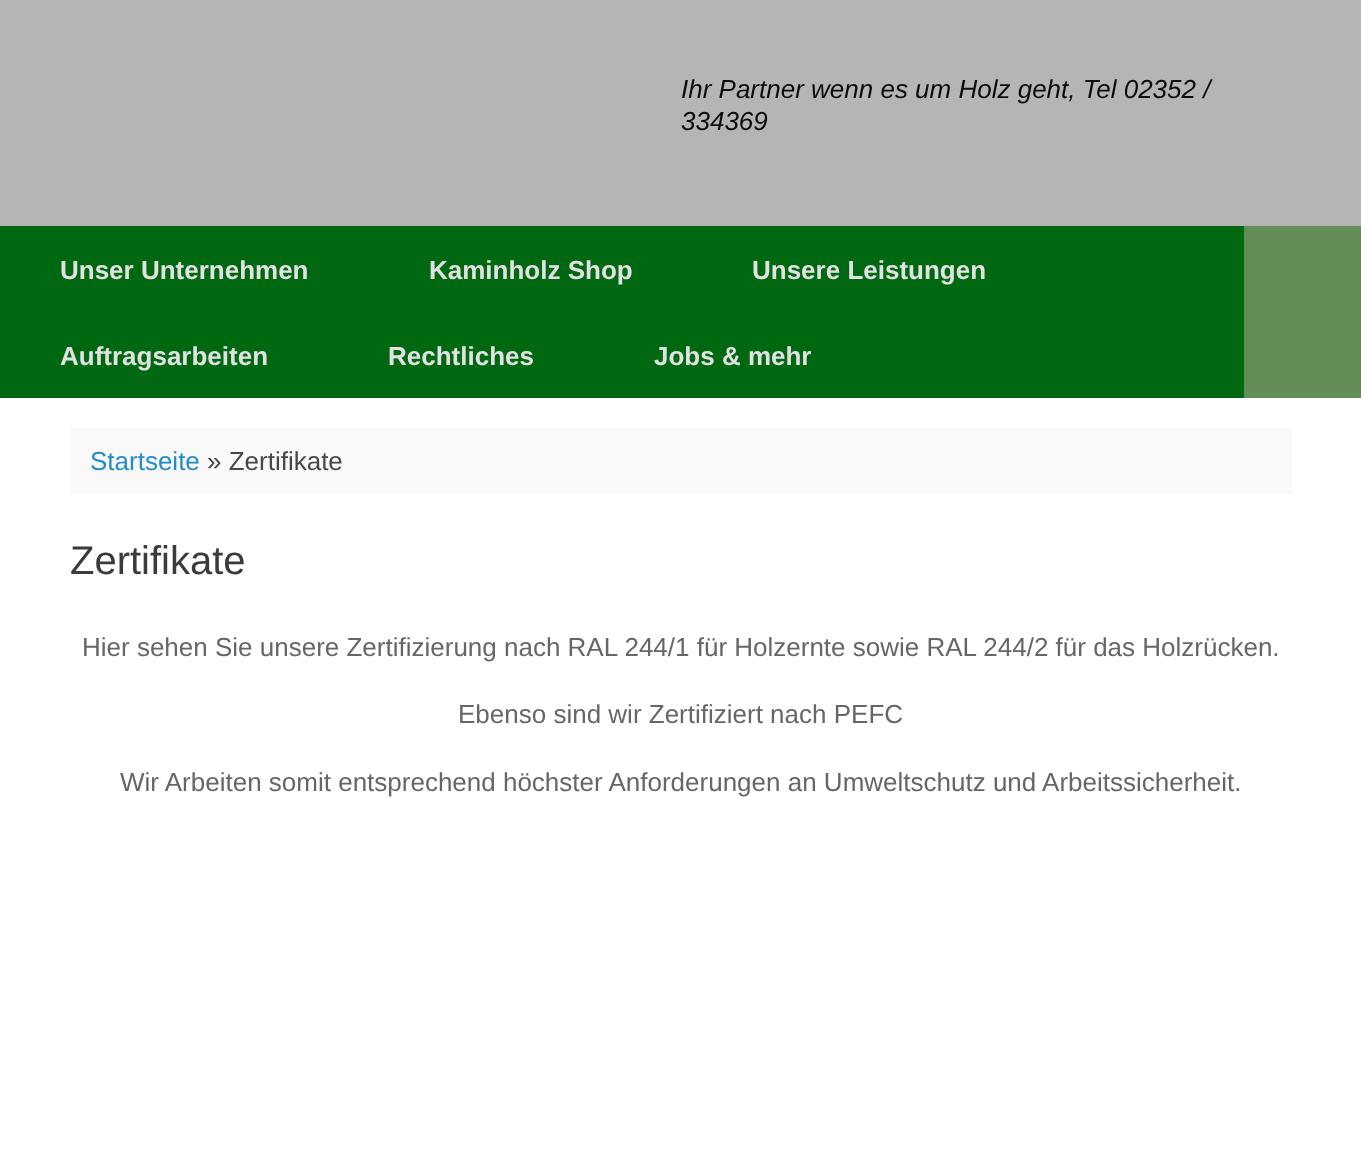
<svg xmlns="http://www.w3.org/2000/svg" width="1361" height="1162">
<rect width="100%" height="100%" fill="#b5b5b5"/>
<text x="681" y="98" style="font-family:Liberation Sans;font-size:26px;font-style:italic;fill:#0c0c0c">Ihr Partner wenn es um Holz geht, Tel 02352 /</text>
<text x="681" y="130" style="font-family:Liberation Sans;font-size:26px;font-style:italic;fill:#0c0c0c">334369</text>
<rect y="226" width="1244" height="172" fill="#006811"/>
<text x="60" y="279" style="font-family:Liberation Sans;font-size:26px;font-weight:bold;fill:#e2e2e2">Unser Unternehmen</text>
<text x="429" y="279" style="font-family:Liberation Sans;font-size:26px;font-weight:bold;fill:#e2e2e2">Kaminholz Shop</text>
<text x="752" y="279" style="font-family:Liberation Sans;font-size:26px;font-weight:bold;fill:#e2e2e2">Unsere Leistungen</text>
<text x="60" y="365" style="font-family:Liberation Sans;font-size:26px;font-weight:bold;fill:#e2e2e2">Auftragsarbeiten</text>
<text x="388" y="365" style="font-family:Liberation Sans;font-size:26px;font-weight:bold;fill:#e2e2e2">Rechtliches</text>
<text x="654" y="365" style="font-family:Liberation Sans;font-size:26px;font-weight:bold;fill:#e2e2e2">Jobs &amp; mehr</text>
<rect x="1244" y="226" width="117" height="172" fill="#658e57"/>
<rect y="398" width="1361" height="764" fill="#fff"/>
<rect x="70" y="428" width="1222" height="66" fill="#f9f9f9"/>
<text x="90" y="470" style="font-family:Liberation Sans;font-size:26px;fill:#248cc8">Startseite</text>
<text x="207" y="470" style="font-family:Liberation Sans;font-size:26px;fill:#474747">» Zertifikate</text>
<text x="70" y="574" style="font-family:Liberation Sans;font-size:40px;fill:#3b3b3b">Zertifikate</text>
<text x="82" y="656" style="font-family:Liberation Sans;font-size:26px;fill:#666">Hier sehen Sie unsere Zertifizierung nach RAL 244/1 für Holzernte sowie RAL 244/2 für das Holzrücken.</text>
<text x="458" y="723" style="font-family:Liberation Sans;font-size:26px;fill:#666">Ebenso sind wir Zertifiziert nach PEFC</text>
<text x="120" y="791" style="font-family:Liberation Sans;font-size:26px;fill:#666">Wir Arbeiten somit entsprechend höchster Anforderungen an Umweltschutz und Arbeitssicherheit.</text>
</svg>
